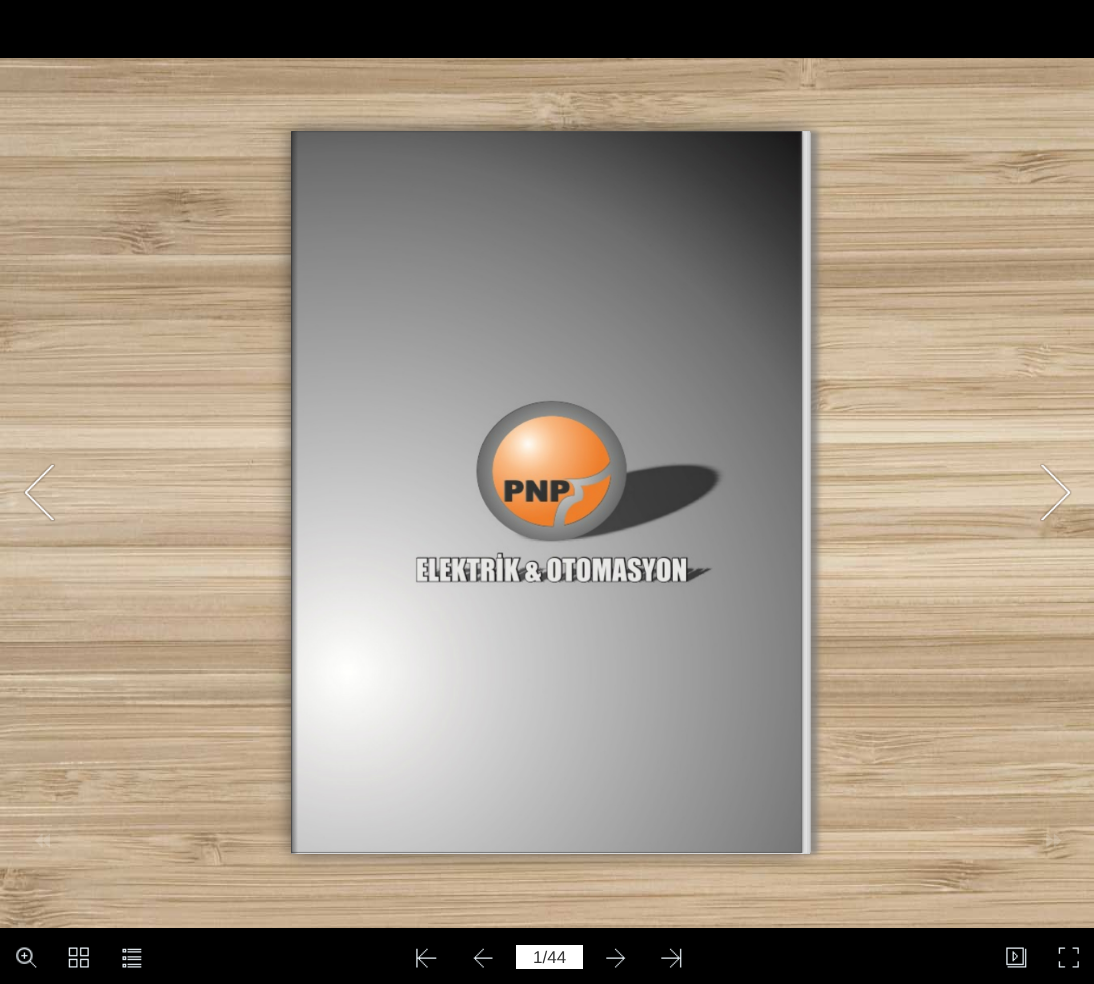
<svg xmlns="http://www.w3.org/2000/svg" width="1094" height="984">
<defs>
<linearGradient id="g1" gradientUnits="userSpaceOnUse" x1="291" y1="493" x2="298" y2="493"><stop offset="0" stop-color="#141414" stop-opacity="0.5"/><stop offset="1" stop-color="#141414" stop-opacity="0"/></linearGradient>
</defs>
<rect width="100%" height="100%" fill="#fff"/>
<rect width="1094" height="58" fill="#000"/>
<image x="0" y="58" width="1094" height="870" href="media/1.png"/>
<image x="23" y="463" width="33" height="59" href="media/2.png"/>
<image x="291" y="853" width="513" height="1" href="media/5.png"/>
<rect x="291" y="131" width="513" height="723" fill="#282828b3" filter="blur(9.5px)"/>
<image x="291" y="853" width="513" height="1" href="media/6.png"/>
<image x="291" y="131" width="513" height="723" href="media/3.png"/>
<rect x="291" y="131" width="7" height="723" fill="url(#g1)"/>
<rect x="803" y="131" width="15" height="723" fill="#7d7d7db3" filter="blur(2.5px)"/>
<rect x="804" y="131" width="6" height="723" fill="#ccc"/>
<image x="804" y="131" width="7" height="723" href="media/4.png"/>
<image x="1040" y="463" width="32" height="59" href="media/7.png"/>
<image x="35" y="833" width="15" height="15" href="media/8.png"/>
<image x="1046" y="833" width="16" height="15" href="media/9.png"/>
<rect y="928" width="1094" height="56" fill="#000"/>
<image x="16" y="947" width="21" height="21" href="media/10.png"/>
<image x="68" y="947" width="21" height="21" href="media/11.png"/>
<image x="122" y="948" width="20" height="20" href="media/12.png"/>
<image x="416" y="948" width="21" height="20" href="media/13.png"/>
<image x="473" y="948" width="20" height="20" href="media/14.png"/>
<rect x="516" y="945" width="67" height="24" fill="#fff"/>
<text x="533" y="963" style="font-family:Liberation Sans;font-size:17px;fill:#333">1/44</text>
<image x="606" y="948" width="20" height="20" href="media/15.png"/>
<image x="661" y="948" width="21" height="20" href="media/16.png"/>
<image x="1006" y="947" width="21" height="21" href="media/17.png"/>
<image x="1058" y="947" width="21" height="21" href="media/18.png"/>
</svg>
